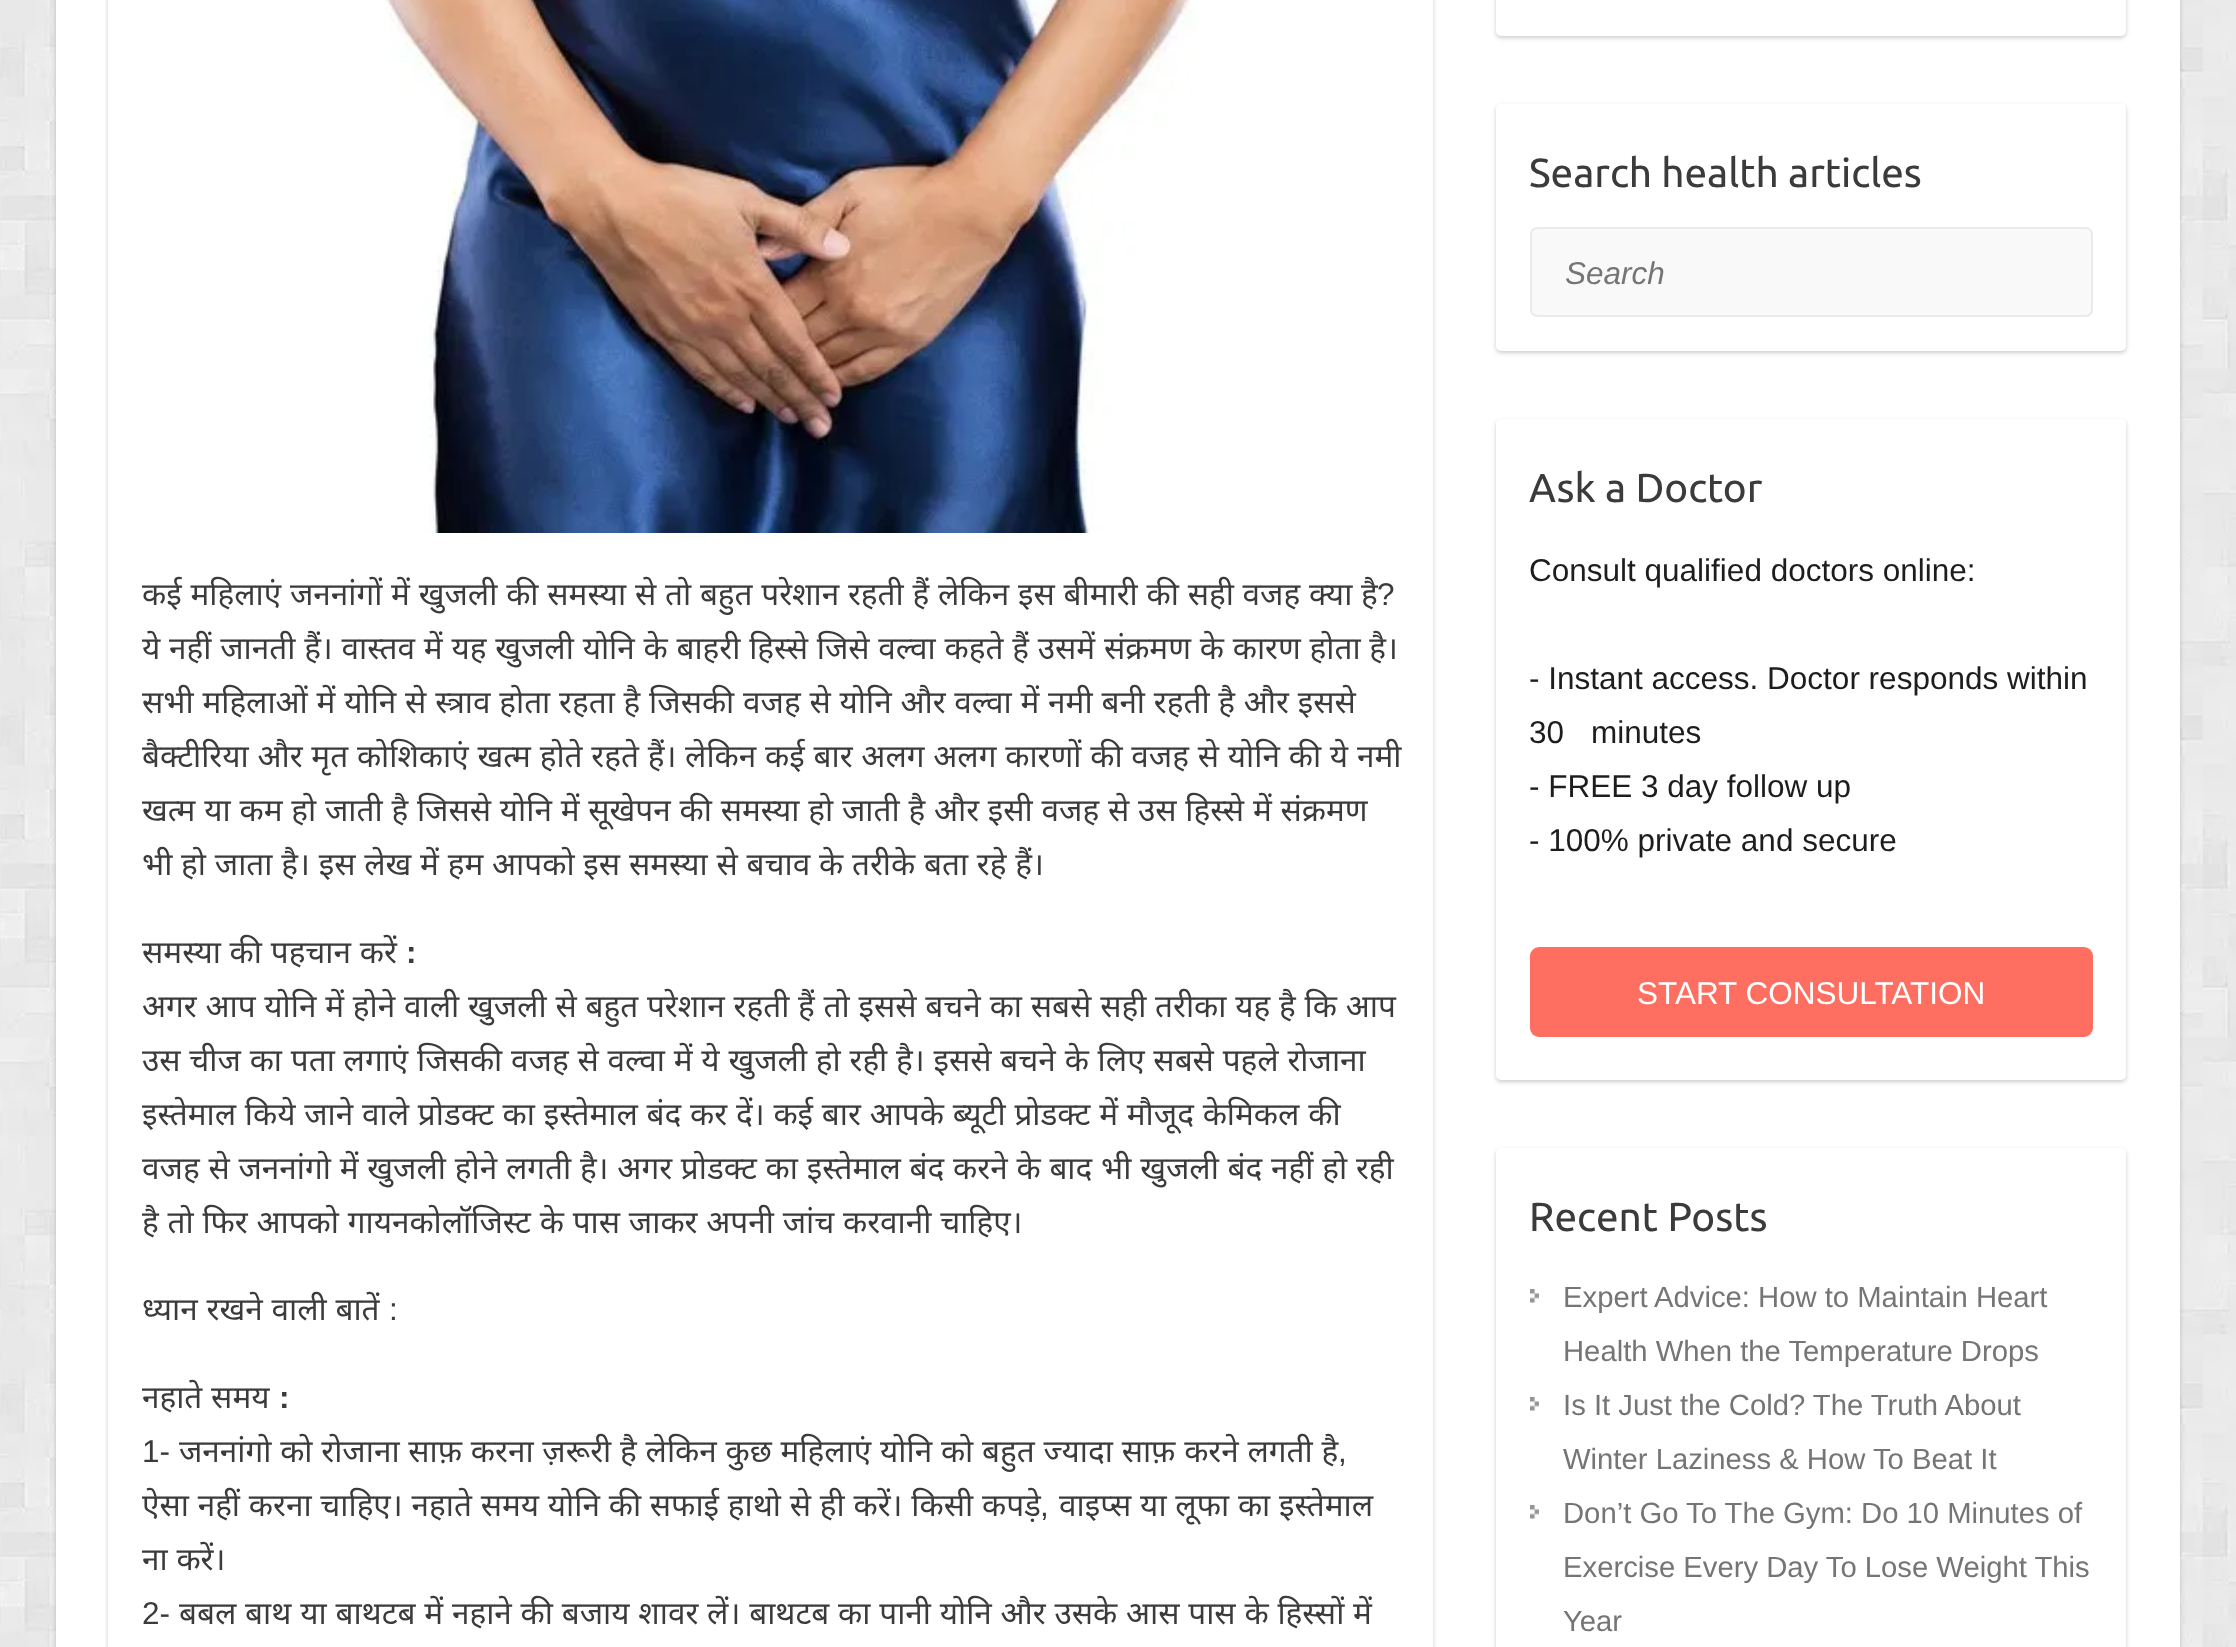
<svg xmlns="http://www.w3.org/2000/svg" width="2236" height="1647">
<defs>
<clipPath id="clip1"><path d="M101 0h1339v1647h-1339zm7-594h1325v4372h-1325z" clip-rule="evenodd"/></clipPath>
</defs>
<rect width="100%" height="100%" fill="#fff"/>
<image x="0" y="0" width="2236" height="1647" href="media/1.png"/>
<rect x="56" y="-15" width="2124" height="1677" rx="9" fill="#00000033" filter="blur(2px)"/>
<rect x="56" width="2124" height="1647" fill="#fff"/>
<g clip-path="url(#clip1)">
<rect x="108" y="-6" width="1325" height="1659" fill="#00000033" filter="blur(2px)"/>
</g>
<image x="385" y="0" width="812" height="533" href="media/2.png"/>
<text x="142" y="605" word-spacing="0.6" style="font-family:Noto Sans;font-size:31.5px;fill:#3b3b3b">कई महिलाएं जननांगों में खुजली की समस्या से तो बहुत परेशान रहती हैं लेकिन इस बीमारी की सही वजह क्या है</text>
<text x="1377" y="605" style="font-family:Liberation Sans;font-size:31.5px;fill:#3b3b3b">?</text>
<text x="142" y="659" word-spacing="0.6" style="font-family:Noto Sans;font-size:31.5px;fill:#3b3b3b">ये नहीं जानती हैं। वास्तव में यह खुजली योनि के बाहरी हिस्से जिसे वल्वा कहते हैं उसमें संक्रमण के कारण होता है।</text>
<text x="142" y="713" word-spacing="0.6" style="font-family:Noto Sans;font-size:31.5px;fill:#3b3b3b">सभी महिलाओं में योनि से स्त्राव होता रहता है जिसकी वजह से योनि और वल्वा में नमी बनी रहती है और इससे</text>
<text x="142" y="767" word-spacing="0.6" style="font-family:Noto Sans;font-size:31.5px;fill:#3b3b3b">बैक्टीरिया और मृत कोशिकाएं खत्म होते रहते हैं। लेकिन कई बार अलग अलग कारणों की वजह से योनि की ये नमी</text>
<text x="142" y="821" word-spacing="0.6" style="font-family:Noto Sans;font-size:31.5px;fill:#3b3b3b">खत्म या कम हो जाती है जिससे योनि में सूखेपन की समस्या हो जाती है और इसी वजह से उस हिस्से में संक्रमण</text>
<text x="142" y="875" word-spacing="0.6" style="font-family:Noto Sans;font-size:31.5px;fill:#3b3b3b">भी हो जाता है। इस लेख में हम आपको इस समस्या से बचाव के तरीके बता रहे हैं।</text>
<text x="142" y="963" word-spacing="0.6" style="font-family:Noto Sans;font-size:31.5px;fill:#3b3b3b">समस्या की पहचान करें</text>
<text x="406" y="963" style="font-family:Liberation Sans;font-size:31.5px;font-weight:bold;fill:#3b3b3b">:</text>
<text x="142" y="1017" word-spacing="0.6" style="font-family:Noto Sans;font-size:31.5px;fill:#3b3b3b">अगर आप योनि में होने वाली खुजली से बहुत परेशान रहती हैं तो इससे बचने का सबसे सही तरीका यह है कि आप</text>
<text x="142" y="1071" word-spacing="0.6" style="font-family:Noto Sans;font-size:31.5px;fill:#3b3b3b">उस चीज का पता लगाएं जिसकी वजह से वल्वा में ये खुजली हो रही है। इससे बचने के लिए सबसे पहले रोजाना</text>
<text x="142" y="1125" word-spacing="0.6" style="font-family:Noto Sans;font-size:31.5px;fill:#3b3b3b">इस्तेमाल किये जाने वाले प्रोडक्ट का इस्तेमाल बंद कर दें। कई बार आपके ब्यूटी प्रोडक्ट में मौजूद केमिकल की</text>
<text x="142" y="1179" word-spacing="0.6" style="font-family:Noto Sans;font-size:31.5px;fill:#3b3b3b">वजह से जननांगो में खुजली होने लगती है। अगर प्रोडक्ट का इस्तेमाल बंद करने के बाद भी खुजली बंद नहीं हो रही</text>
<text x="142" y="1233" word-spacing="0.6" style="font-family:Noto Sans;font-size:31.5px;fill:#3b3b3b">है तो फिर आपको गायनकोलॉजिस्ट के पास जाकर अपनी जांच करवानी चाहिए।</text>
<text x="142" y="1320" word-spacing="0.6" style="font-family:Noto Sans;font-size:31.5px;fill:#3b3b3b">ध्यान रखने वाली बातें</text>
<text x="389" y="1320" style="font-family:Liberation Sans;font-size:31.5px;fill:#3b3b3b">:</text>
<text x="142" y="1408" word-spacing="0.6" style="font-family:Noto Sans;font-size:31.5px;fill:#3b3b3b">नहाते समय</text>
<text x="279" y="1408" style="font-family:Liberation Sans;font-size:31.5px;font-weight:bold;fill:#3b3b3b">:</text>
<text x="142" y="1462" style="font-family:Liberation Sans;font-size:31.5px;fill:#3b3b3b">1-</text>
<text x="179" y="1462" word-spacing="0.6" style="font-family:Noto Sans;font-size:31.5px;fill:#3b3b3b">जननांगो को रोजाना साफ़ करना ज़रूरी है लेकिन कुछ महिलाएं योनि को बहुत ज्यादा साफ़ करने लगती है</text>
<text x="1338" y="1462" style="font-family:Liberation Sans;font-size:31.5px;fill:#3b3b3b">,</text>
<text x="142" y="1516" word-spacing="0.6" style="font-family:Noto Sans;font-size:31.5px;fill:#3b3b3b">ऐसा नहीं करना चाहिए। नहाते समय योनि की सफाई हाथो से ही करें। किसी कपड़े</text>
<text x="1040" y="1516" style="font-family:Liberation Sans;font-size:31.5px;fill:#3b3b3b">,</text>
<text x="1059" y="1516" word-spacing="0.6" style="font-family:Noto Sans;font-size:31.5px;fill:#3b3b3b">वाइप्स या लूफा का इस्तेमाल</text>
<text x="142" y="1570" word-spacing="0.6" style="font-family:Noto Sans;font-size:31.5px;fill:#3b3b3b">ना करें।</text>
<text x="142" y="1624" style="font-family:Liberation Sans;font-size:31.5px;fill:#3b3b3b">2-</text>
<text x="179" y="1624" word-spacing="0.6" style="font-family:Noto Sans;font-size:31.5px;fill:#3b3b3b">बबल बाथ या बाथटब में नहाने की बजाय शावर लें। बाथटब का पानी योनि और उसके आस पास के हिस्सों में</text>
<rect x="1496" y="-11" width="630" height="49" rx="5" fill="#00000033" filter="blur(2px)"/>
<rect x="1496" y="-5" width="630" height="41" rx="5" fill="#fff"/>
<rect x="1496" y="106" width="630" height="247" rx="5" fill="#00000033" filter="blur(2px)"/>
<rect x="1496" y="104" width="630" height="247" rx="5" fill="#fff"/>
<text x="1529" y="187" style="font-family:Ubuntu;font-size:40.5px;fill:#3b3b3b">Search health articles</text>
<rect x="1531" y="228" width="561" height="88" rx="6" fill="#f9f9f9" stroke="#eaeaea" stroke-width="2"/>
<text x="1565" y="284" style="font-family:Liberation Sans;font-size:31.5px;font-style:italic;fill:#757575">Search</text>
<rect x="1496" y="421" width="630" height="661" rx="5" fill="#00000033" filter="blur(2px)"/>
<rect x="1496" y="419" width="630" height="661" rx="5" fill="#fff"/>
<text x="1529" y="502" style="font-family:Ubuntu;font-size:40.5px;fill:#3b3b3b">Ask a Doctor</text>
<text x="1529" y="581" style="font-family:Liberation Sans;font-size:31.5px;fill:#1d1d1d">Consult qualified doctors online:</text>
<text x="1529" y="689" style="font-family:Liberation Sans;font-size:31.5px;fill:#1d1d1d">- Instant access. Doctor responds within</text>
<text x="1529" y="743" style="font-family:Liberation Sans;font-size:31.5px;fill:#1d1d1d">30</text>
<text x="1591" y="743" style="font-family:Liberation Sans;font-size:31.5px;fill:#1d1d1d">minutes</text>
<text x="1529" y="797" style="font-family:Liberation Sans;font-size:31.5px;fill:#1d1d1d">- FREE 3 day follow up</text>
<text x="1529" y="851" style="font-family:Liberation Sans;font-size:31.5px;fill:#1d1d1d">- 100% private and secure</text>
<rect x="1530" y="947" width="563" height="90" rx="9" fill="#ff6f61"/>
<text x="1637" y="1004" style="font-family:Liberation Sans;font-size:31.5px;fill:#fff">START CONSULTATION</text>
<rect x="1496" y="1150" width="630" height="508" rx="5" fill="#00000033" filter="blur(2px)"/>
<rect x="1496" y="1148" width="630" height="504" rx="5" fill="#fff"/>
<text x="1529" y="1231" style="font-family:Ubuntu;font-size:40.5px;fill:#3b3b3b">Recent Posts</text>
<image x="1530" y="1289" width="9" height="14" href="media/3.png"/>
<text x="1563" y="1307" style="font-family:Liberation Sans;font-size:29.25px;fill:#757575">Expert Advice: How to Maintain Heart</text>
<text x="1563" y="1361" style="font-family:Liberation Sans;font-size:29.25px;fill:#757575">Health When the Temperature Drops</text>
<image x="1530" y="1397" width="9" height="14" href="media/3.png"/>
<text x="1563" y="1415" style="font-family:Liberation Sans;font-size:29.25px;fill:#757575">Is It Just the Cold? The Truth About</text>
<text x="1563" y="1469" style="font-family:Liberation Sans;font-size:29.25px;fill:#757575">Winter Laziness &amp; How To Beat It</text>
<image x="1530" y="1505" width="9" height="14" href="media/3.png"/>
<text x="1563" y="1523" style="font-family:Liberation Sans;font-size:29.25px;fill:#757575">Don’t Go To The Gym: Do 10 Minutes of</text>
<text x="1563" y="1577" style="font-family:Liberation Sans;font-size:29.25px;fill:#757575">Exercise Every Day To Lose Weight This</text>
<text x="1563" y="1631" style="font-family:Liberation Sans;font-size:29.25px;fill:#757575">Year</text>
</svg>
